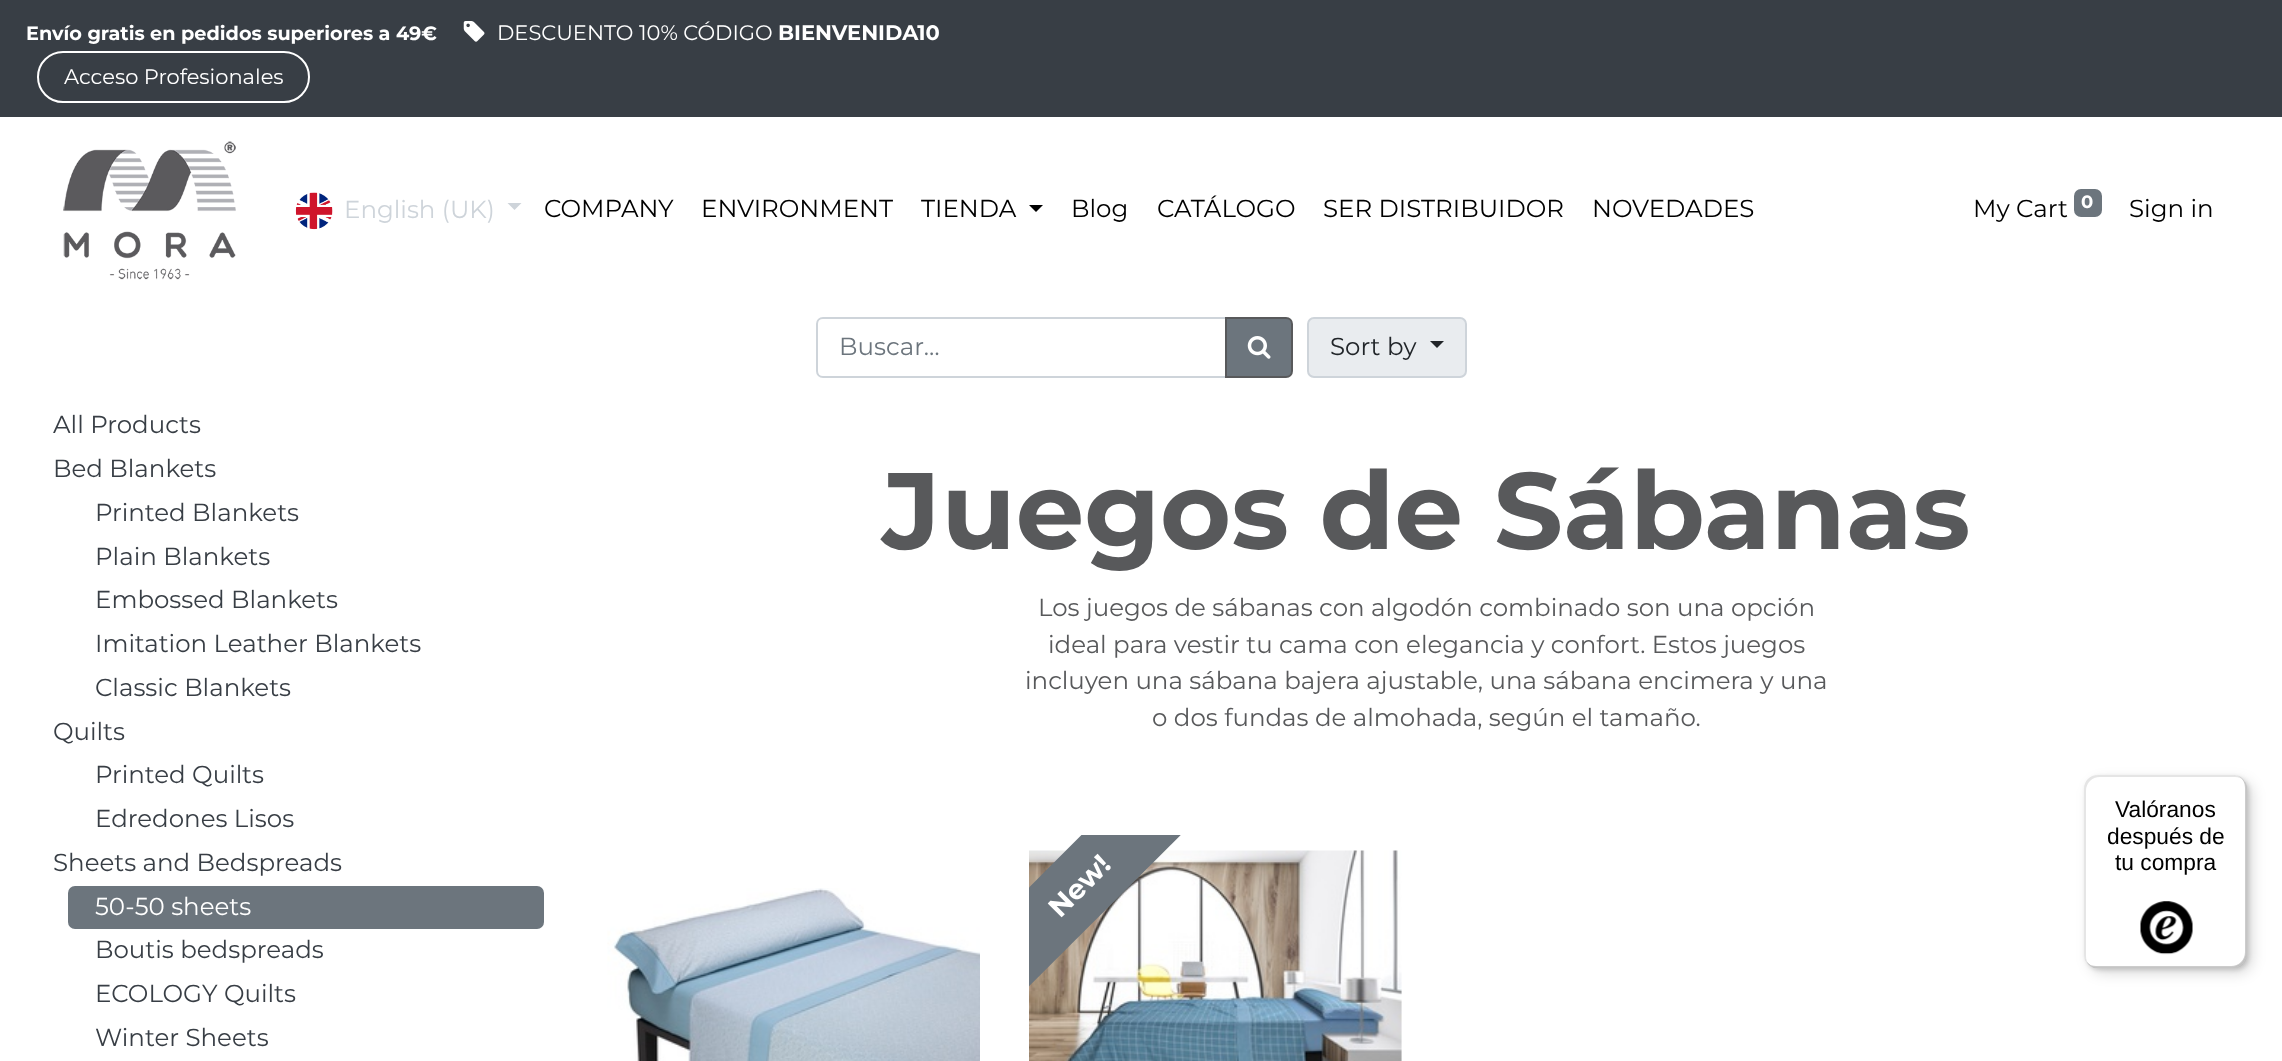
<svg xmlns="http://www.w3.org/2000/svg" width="2282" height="1061">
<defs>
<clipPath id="clip1"><rect x="1029" y="835" width="373" height="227"/></clipPath>
</defs>
<rect width="100%" height="100%" fill="#fff"/>
<rect width="2282" height="117" fill="#383e45"/>
<text x="26" y="40" style="font-family:Montserrat;font-size:19.25px;font-weight:bold;fill:#fff">Envío gratis en pedidos superiores a 49€</text>
<image x="463" y="21" width="22" height="21" href="media/1.png"/>
<text x="497" y="40" style="font-family:Montserrat;font-size:21px;fill:#fff">DESCUENTO 10% CÓDIGO</text>
<text x="778" y="40" style="font-family:Montserrat;font-size:21px;font-weight:bold;fill:#fff">BIENVENIDA10</text>
<rect x="38" y="52" width="271" height="50" rx="25" fill="none" stroke="#fff" stroke-width="2"/>
<text x="64" y="84" style="font-family:Montserrat;font-size:21px;fill:#fff">Acceso Profesionales</text>
<image x="63" y="141" width="173" height="139" href="media/2.png"/>
<image x="295" y="192" width="38" height="38" href="media/3.png"/>
<text x="344" y="218" style="font-family:Montserrat;font-size:24.5px;fill:#ced4da">English (UK)</text>
<path d="M507.5 203h14l-7 7z" fill="#ced4da"/>
<text x="544" y="217" style="font-family:Montserrat;font-size:24.5px;fill:#000">COMPANY</text>
<text x="701" y="217" style="font-family:Montserrat;font-size:24.5px;fill:#000">ENVIRONMENT</text>
<text x="921" y="217" style="font-family:Montserrat;font-size:24.5px;fill:#000">TIENDA</text>
<path d="M1029 205h14l-7 7z" fill="#000"/>
<text x="1071" y="217" style="font-family:Montserrat;font-size:24.5px;fill:#000">Blog</text>
<text x="1157" y="217" style="font-family:Montserrat;font-size:24.5px;fill:#000">CATÁLOGO</text>
<text x="1323" y="217" style="font-family:Montserrat;font-size:24.5px;fill:#000">SER DISTRIBUIDOR</text>
<text x="1592" y="217" style="font-family:Montserrat;font-size:24.5px;fill:#000">NOVEDADES</text>
<text x="1973" y="217" style="font-family:Montserrat;font-size:24.5px;fill:#000">My Cart</text>
<rect x="2074" y="189" width="28" height="28" rx="7" fill="#6c757d"/>
<text x="2081" y="208" style="font-family:Montserrat;font-size:18px;font-weight:bold;fill:#fff">0</text>
<text x="2129" y="217" style="font-family:Montserrat;font-size:24.5px;fill:#000">Sign in</text>
<path d="M823 318h403v59h-403c-3.5 0-6-2.5-6-6v-47c0-3.5 2.5-6 6-6z" fill="none" stroke="#ced4da" stroke-width="2"/>
<text x="839" y="355" style="font-family:Montserrat;font-size:24.5px;fill:#6c757d">Buscar…</text>
<path d="M1226 318h60c3.5 0 6 2.5 6 6v47c0 3.5-2.5 6-6 6h-60z" fill="#6c757d" stroke="#58595b" stroke-width="2"/>
<image x="1247" y="336" width="24" height="23" href="media/4.png"/>
<rect x="1308" y="318" width="158" height="59" rx="6" fill="#e9ecef" stroke="#ced4da" stroke-width="2"/>
<text x="1330" y="355" style="font-family:Montserrat;font-size:24.5px;fill:#212529">Sort by</text>
<path d="M1430 341h14l-7 7z" fill="#212529"/>
<text x="53" y="433" style="font-family:Montserrat;font-size:24.5px;fill:#383e45">All Products</text>
<text x="53" y="477" style="font-family:Montserrat;font-size:24.5px;fill:#383e45">Bed Blankets</text>
<text x="95" y="521" style="font-family:Montserrat;font-size:24.5px;fill:#383e45">Printed Blankets</text>
<text x="95" y="565" style="font-family:Montserrat;font-size:24.5px;fill:#383e45">Plain Blankets</text>
<text x="95" y="608" style="font-family:Montserrat;font-size:24.5px;fill:#383e45">Embossed Blankets</text>
<text x="95" y="652" style="font-family:Montserrat;font-size:24.5px;fill:#383e45">Imitation Leather Blankets</text>
<text x="95" y="696" style="font-family:Montserrat;font-size:24.5px;fill:#383e45">Classic Blankets</text>
<text x="53" y="740" style="font-family:Montserrat;font-size:24.5px;fill:#383e45">Quilts</text>
<text x="95" y="783" style="font-family:Montserrat;font-size:24.5px;fill:#383e45">Printed Quilts</text>
<text x="95" y="827" style="font-family:Montserrat;font-size:24.5px;fill:#383e45">Edredones Lisos</text>
<text x="53" y="871" style="font-family:Montserrat;font-size:24.5px;fill:#383e45">Sheets and Bedspreads</text>
<rect x="68" y="886" width="476" height="43" rx="7" fill="#6c757d"/>
<text x="95" y="915" style="font-family:Montserrat;font-size:24.5px;fill:#fff">50-50 sheets</text>
<text x="95" y="958" style="font-family:Montserrat;font-size:24.5px;fill:#383e45">Boutis bedspreads</text>
<text x="95" y="1002" style="font-family:Montserrat;font-size:24.5px;fill:#383e45">ECOLOGY Quilts</text>
<text x="95" y="1046" style="font-family:Montserrat;font-size:24.5px;fill:#383e45">Winter Sheets</text>
<text x="882" y="549" style="font-family:Montserrat;font-size:108.5px;font-weight:bold;fill:#58595b">Juegos de Sábanas</text>
<text x="1038" y="616" style="font-family:Montserrat;font-size:24.5px;fill:#58595b">Los juegos de sábanas con algodón combinado son una opción</text>
<text x="1048" y="653" style="font-family:Montserrat;font-size:24.5px;fill:#58595b">ideal para vestir tu cama con elegancia y confort. Estos juegos</text>
<text x="1025" y="689" style="font-family:Montserrat;font-size:24.5px;fill:#58595b">incluyen una sábana bajera ajustable, una sábana encimera y una</text>
<text x="1152" y="726" style="font-family:Montserrat;font-size:24.5px;fill:#58595b">o dos fundas de almohada, según el tamaño.</text>
<image x="607" y="888" width="373" height="173" href="media/5.png"/>
<image x="1029" y="850" width="373" height="211" href="media/6.png"/>
<g clip-path="url(#clip1)">
<path d="M905 1012l300-301l50 50l-301 300z" fill="#6c757d"/>
</g>
<text x="1060" y="919" transform="rotate(-45 1060 919)" style="font-family:Montserrat;font-size:28px;font-weight:bold;fill:#fff">New!</text>
<rect x="2090" y="781" width="162" height="192" rx="14" fill="#00000026" filter="blur(7px)"/>
<rect x="2086" y="777" width="163" height="193" rx="14" fill="#00000026" filter="blur(2px)"/>
<rect x="2084" y="775" width="163" height="193" rx="14" fill="#fff"/>
<path d="M2100 777h135c3 0 7 1 9 4c-2-4-6-6-11-6h-135c-8 0-14 6-14 14v165c0 5 2 9 6 11c-3-2-4-6-4-9v-165c0-8 6-14 14-14z" fill="#0000001a"/>
<path d="M2087 962c2 4 6 6 11 6h135c8 0 14-6 14-14v-165c0-6-3-10-8-13c4 3 6 7 6 12v164c0 8-6 14-14 14h-135c-3 0-7-1-9-4z" fill="#00000033"/>
<path d="M2087 962c2 4 6 6 11 6h135c8 0 14-6 14-14v-165c0-4-1-7-4-9c2 2 3 5 3 8v165c0 7-6 14-14 14h-135c-4 0-8-2-10-5z" fill="#32323233"/>
<path d="M2087 963c2 3 6 5 11 5h135c8 0 14-6 14-14v-165c0-5-2-9-5-11c2 3 4 6 4 10v165c0 8-6 14-14 14h-135c-4 0-7-2-10-4z" fill="#ffffff4d"/>
<text x="2115" y="817" style="font-family:Liberation Sans;font-size:22.75px;fill:#000">Valóranos</text>
<text x="2107" y="844" style="font-family:Liberation Sans;font-size:22.75px;fill:#000">después de</text>
<text x="2115" y="870" style="font-family:Liberation Sans;font-size:22.75px;fill:#000">tu compra</text>
<image x="2140" y="901" width="53" height="54" href="media/7.png"/>
</svg>
